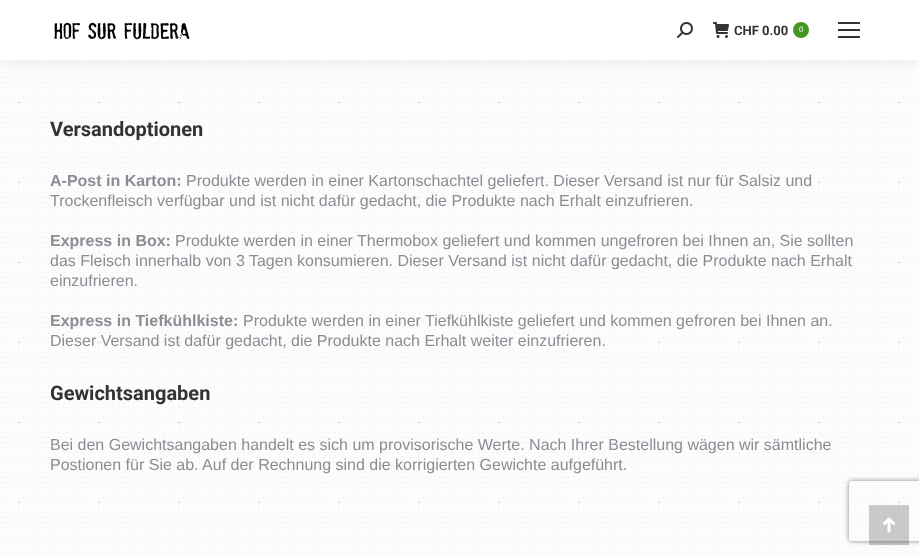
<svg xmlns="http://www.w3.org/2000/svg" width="919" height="555">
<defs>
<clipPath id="clip1"><path d="M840 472h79v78h-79zm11 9h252c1 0 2 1 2 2v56c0 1-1 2-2 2h-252c-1 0-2-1-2-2v-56c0-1 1-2 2-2z" clip-rule="evenodd"/></clipPath>
</defs>
<rect width="100%" height="100%" fill="#fff"/>
<image x="0" y="60" width="919" height="495" href="media/1.png"/>
<rect x="-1" y="-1" width="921" height="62" fill="#00000012" filter="blur(7.5px)"/>
<rect width="919" height="60" fill="#fff"/>
<image x="54" y="22" width="136" height="18" href="media/2.png"/>
<image x="677" y="22" width="16" height="16" href="media/3.png"/>
<image x="713" y="22" width="16" height="16" href="media/4.png"/>
<text x="734" y="35" style="font-family:Roboto;font-size:13px;font-weight:bold;fill:#333">CHF 0.00</text>
<circle cx="801" cy="30" r="8" fill="#43961f"/>
<text x="799" y="32" style="font-family:Liberation Sans;font-size:8px;fill:#fff">0</text>
<rect x="838" y="22" width="22" height="2" fill="#333"/>
<rect x="838" y="29" width="22" height="2" fill="#333"/>
<rect x="838" y="36" width="22" height="2" fill="#333"/>
<text x="50" y="136" style="font-family:Roboto;font-size:20px;font-weight:bold;fill:#333">Versandoptionen</text>
<text x="50" y="186" style="font-family:Liberation Sans;font-size:16px;font-weight:bold;fill:#8b8d94">A-Post in Karton:</text>
<text x="186" y="186" style="font-family:Liberation Sans;font-size:16px;fill:#8b8d94">Produkte werden in einer Kartonschachtel geliefert. Dieser Versand ist nur für Salsiz und</text>
<text x="50" y="206" style="font-family:Liberation Sans;font-size:16px;fill:#8b8d94">Trockenfleisch verfügbar und ist nicht dafür gedacht, die Produkte nach Erhalt einzufrieren.</text>
<text x="50" y="246" style="font-family:Liberation Sans;font-size:16px;font-weight:bold;fill:#8b8d94">Express in Box:</text>
<text x="175" y="246" style="font-family:Liberation Sans;font-size:16px;fill:#8b8d94">Produkte werden in einer Thermobox geliefert und kommen ungefroren bei Ihnen an, Sie sollten</text>
<text x="50" y="266" style="font-family:Liberation Sans;font-size:16px;fill:#8b8d94">das Fleisch innerhalb von 3 Tagen konsumieren. Dieser Versand ist nicht dafür gedacht, die Produkte nach Erhalt</text>
<text x="50" y="286" style="font-family:Liberation Sans;font-size:16px;fill:#8b8d94">einzufrieren.</text>
<text x="50" y="326" style="font-family:Liberation Sans;font-size:16px;font-weight:bold;fill:#8b8d94">Express in Tiefkühlkiste:</text>
<text x="243" y="326" style="font-family:Liberation Sans;font-size:16px;fill:#8b8d94">Produkte werden in einer Tiefkühlkiste geliefert und kommen gefroren bei Ihnen an.</text>
<text x="50" y="346" style="font-family:Liberation Sans;font-size:16px;fill:#8b8d94">Dieser Versand ist dafür gedacht, die Produkte nach Erhalt weiter einzufrieren.</text>
<text x="50" y="400" style="font-family:Roboto;font-size:20px;font-weight:bold;fill:#333">Gewichtsangaben</text>
<text x="50" y="450" style="font-family:Liberation Sans;font-size:16px;fill:#8b8d94">Bei den Gewichtsangaben handelt es sich um provisorische Werte. Nach Ihrer Bestellung wägen wir sämtliche</text>
<text x="50" y="470" style="font-family:Liberation Sans;font-size:16px;fill:#8b8d94">Postionen für Sie ab. Auf der Rechnung sind die korrigierten Gewichte aufgeführt.</text>
<g clip-path="url(#clip1)">
<rect x="849" y="481" width="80" height="60" rx="2" fill="#808080" filter="blur(2.5px)"/>
</g>
<rect x="869" y="505" width="40" height="40" fill="#00000033"/>
<image x="883" y="517" width="12" height="16" href="media/5.png"/>
</svg>
